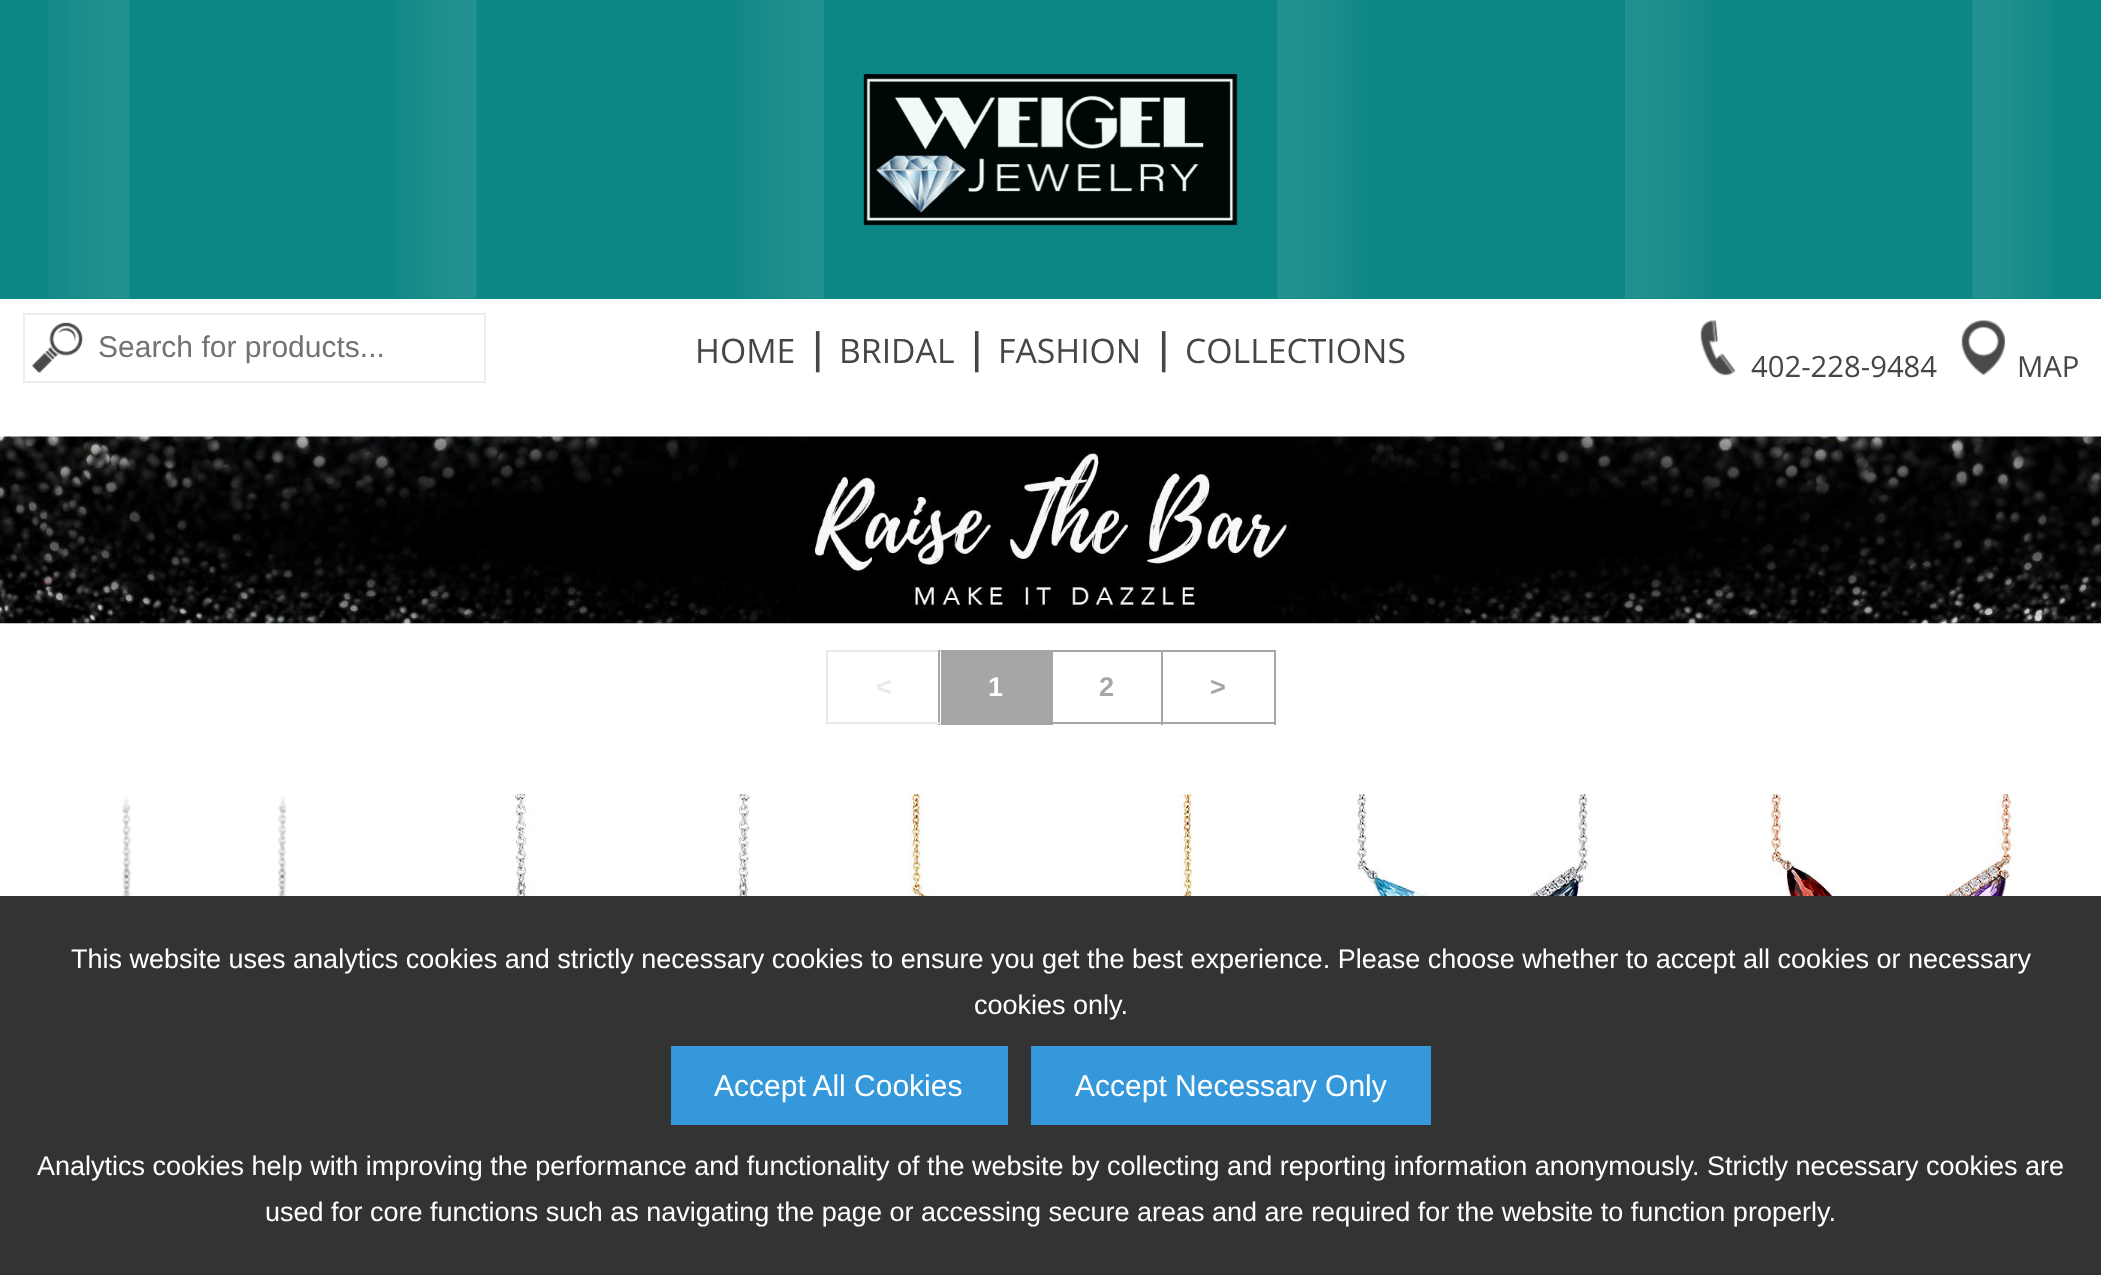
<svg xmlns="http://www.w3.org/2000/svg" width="2101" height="1275">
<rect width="100%" height="100%" fill="#fff"/>
<rect width="2101" height="299" fill="#0d8686"/>
<image x="48" y="0" width="2006" height="299" href="media/1.png"/>
<rect x="24" y="314" width="461" height="68" fill="none" stroke="#ededed" stroke-width="2"/>
<image x="32" y="322" width="51" height="51" href="media/2.png"/>
<text x="98" y="357" style="font-family:Liberation Sans;font-size:30px;fill:#757172">Search for products...</text>
<text x="695" y="363" style="font-family:Open Sans;font-size:33.75px;fill:#464646">HOME</text>
<text x="812" y="363" style="font-family:Liberation Sans;font-size:44px;fill:#464646">|</text>
<text x="839" y="363" style="font-family:Open Sans;font-size:33.75px;fill:#464646">BRIDAL</text>
<text x="971" y="363" style="font-family:Liberation Sans;font-size:44px;fill:#464646">|</text>
<text x="998" y="363" style="font-family:Open Sans;font-size:33.75px;fill:#464646">FASHION</text>
<text x="1158" y="363" style="font-family:Liberation Sans;font-size:44px;fill:#464646">|</text>
<text x="1185" y="363" style="font-family:Open Sans;font-size:33.75px;fill:#464646">COLLECTIONS</text>
<image x="1700" y="320" width="36" height="56" href="media/3.png"/>
<text x="1751" y="377" style="font-family:Open Sans;font-size:29.25px;fill:#464646">402-228-9484</text>
<image x="1961" y="320" width="45" height="56" href="media/4.png"/>
<text x="2017" y="377" style="font-family:Open Sans;font-size:29.25px;fill:#464646">MAP</text>
<image x="0" y="436" width="2101" height="188" href="media/5.png"/>
<rect x="826" y="650" width="115" height="2" fill="#e9e9e9"/>
<rect x="938" y="650" width="2" height="75" fill="#a6a6a6"/>
<rect x="826" y="722" width="115" height="2" fill="#e9e9e9"/>
<rect x="826" y="650" width="2" height="75" fill="#e9e9e9"/>
<text x="876" y="696" style="font-family:Liberation Sans;font-size:27px;font-weight:bold;fill:#e9e9e9">&lt;</text>
<rect x="941" y="650" width="112" height="75" fill="#a6a6a6"/>
<text x="988" y="696" style="font-family:Liberation Sans;font-size:27px;font-weight:bold;fill:#fff">1</text>
<rect x="1053" y="650" width="223" height="2" fill="#a6a6a6"/>
<rect x="1161" y="650" width="2" height="75" fill="#a6a6a6"/>
<rect x="1053" y="722" width="110" height="2" fill="#a6a6a6"/>
<text x="1099" y="696" style="font-family:Liberation Sans;font-size:27px;font-weight:bold;fill:#a6a6a6">2</text>
<rect x="1274" y="650" width="2" height="75" fill="#a6a6a6"/>
<rect x="1163" y="722" width="113" height="2" fill="#a6a6a6"/>
<text x="1210" y="696" style="font-family:Liberation Sans;font-size:27px;font-weight:bold;fill:#a6a6a6">&gt;</text>
<image x="122" y="796" width="164" height="100" href="media/6.png"/>
<image x="511" y="794" width="239" height="102" href="media/7.png"/>
<image x="909" y="794" width="293" height="102" href="media/8.png"/>
<image x="1352" y="794" width="239" height="102" href="media/9.png"/>
<image x="1770" y="794" width="247" height="102" href="media/10.png"/>
<rect y="896" width="2101" height="379" fill="#333"/>
<text x="71" y="968" style="font-family:Liberation Sans;font-size:27px;fill:#fff">This website uses analytics cookies and strictly necessary cookies to ensure you get the best experience. Please choose whether to accept all cookies or necessary</text>
<text x="974" y="1014" style="font-family:Liberation Sans;font-size:27px;fill:#fff">cookies only.</text>
<rect x="671" y="1046" width="337" height="79" fill="#3498db"/>
<text x="714" y="1096" style="font-family:Liberation Sans;font-size:30px;fill:#fff">Accept All Cookies</text>
<rect x="1031" y="1046" width="400" height="79" fill="#3498db"/>
<text x="1075" y="1096" style="font-family:Liberation Sans;font-size:30px;fill:#fff">Accept Necessary Only</text>
<text x="37" y="1175" style="font-family:Liberation Sans;font-size:27px;fill:#fff">Analytics cookies help with improving the performance and functionality of the website by collecting and reporting information anonymously. Strictly necessary cookies are</text>
<text x="265" y="1221" style="font-family:Liberation Sans;font-size:27px;fill:#fff">used for core functions such as navigating the page or accessing secure areas and are required for the website to function properly.</text>
</svg>
